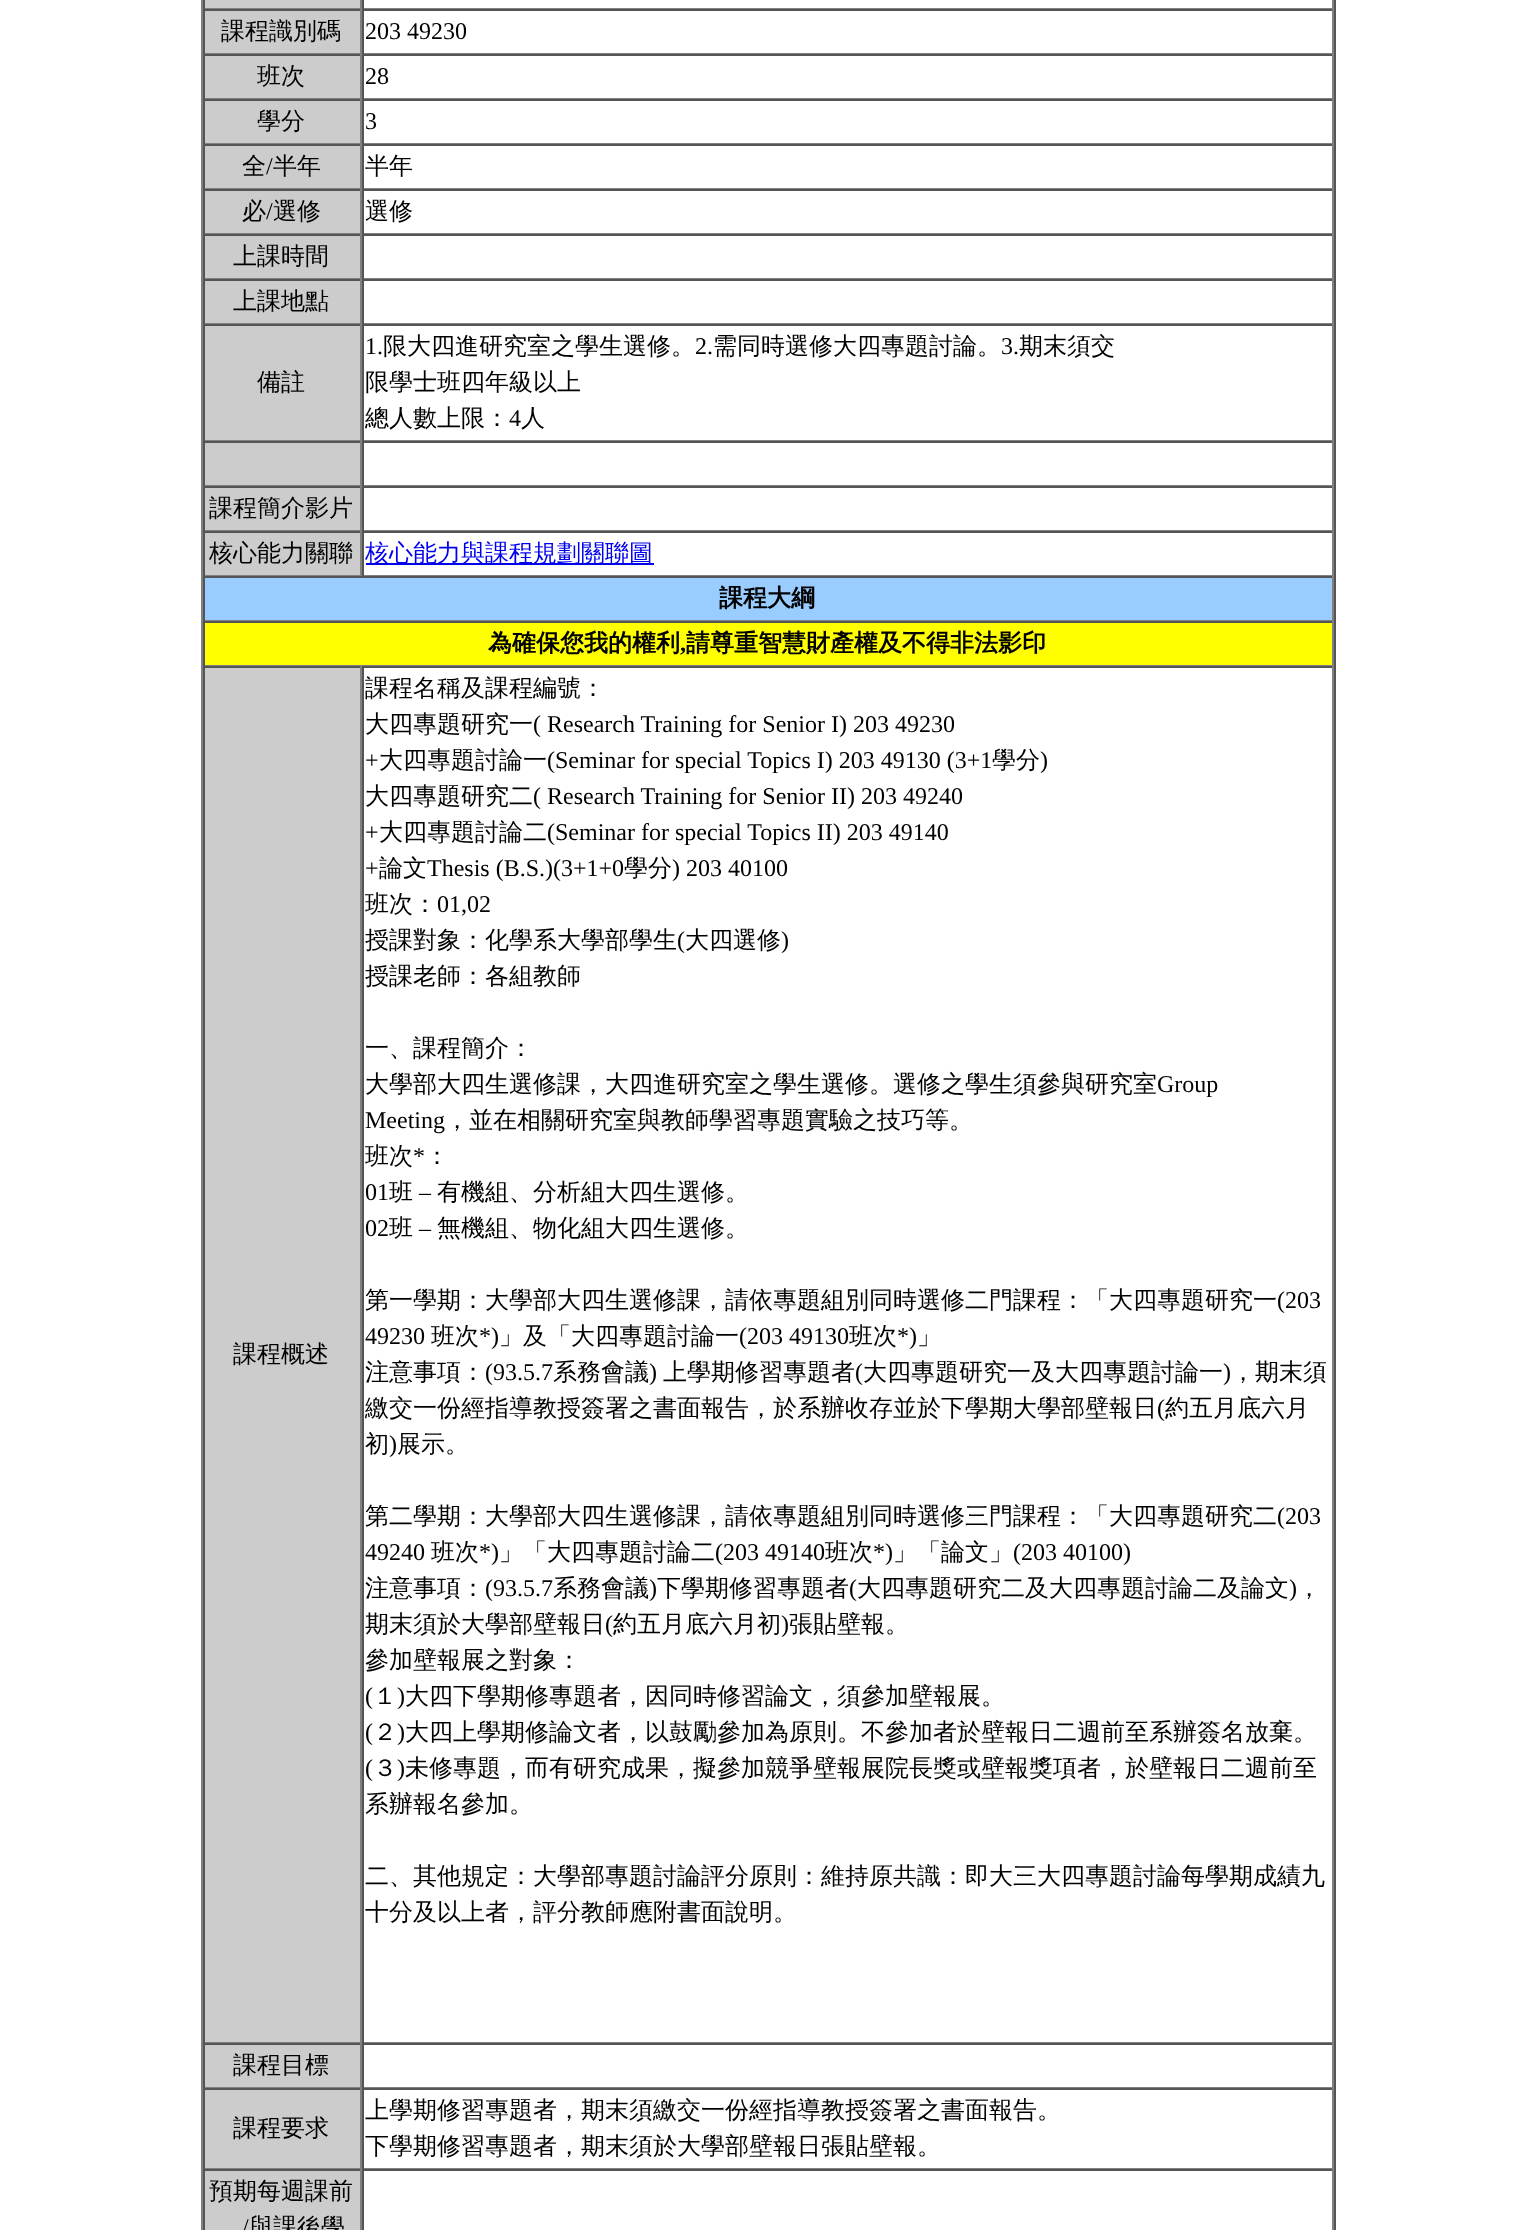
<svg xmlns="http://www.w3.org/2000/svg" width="1534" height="2230">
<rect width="100%" height="100%" fill="#fff"/>
<rect x="1334" width="2" height="2230" fill="#555"/>
<rect x="201" width="2" height="2230" fill="#808080"/>
<rect x="205" width="155" height="8" fill="#ccc"/>
<rect x="360" width="2" height="9" fill="#808080"/>
<rect x="203" y="8" width="159" height="1" fill="#808080"/>
<rect x="203" width="2" height="9" fill="#555"/>
<rect x="1332" width="2" height="9" fill="#808080"/>
<rect x="362" y="8" width="972" height="1" fill="#808080"/>
<rect x="362" width="2" height="9" fill="#555"/>
<rect x="205" y="11" width="155" height="42" fill="#ccc"/>
<rect x="203" y="9" width="1131" height="2" fill="#555"/>
<rect x="360" y="9" width="2" height="45" fill="#808080"/>
<rect x="203" y="53" width="159" height="1" fill="#808080"/>
<rect x="203" y="9" width="2" height="45" fill="#555"/>
<text x="221" y="39" style="font-family:WenQuanYi Zen Hei;font-size:24px;font-weight:500;fill:#000">課程識別碼</text>
<rect x="1332" y="9" width="2" height="45" fill="#808080"/>
<rect x="362" y="53" width="972" height="1" fill="#808080"/>
<rect x="362" y="9" width="2" height="45" fill="#555"/>
<text x="365" y="39" style="font-family:Liberation Serif;font-size:24px;fill:#000">203 49230</text>
<rect x="205" y="56" width="155" height="42" fill="#ccc"/>
<rect x="203" y="54" width="1131" height="2" fill="#555"/>
<rect x="360" y="54" width="2" height="45" fill="#808080"/>
<rect x="203" y="98" width="159" height="1" fill="#808080"/>
<rect x="203" y="54" width="2" height="45" fill="#555"/>
<text x="257" y="84" style="font-family:WenQuanYi Zen Hei;font-size:24px;font-weight:500;fill:#000">班次</text>
<rect x="1332" y="54" width="2" height="45" fill="#808080"/>
<rect x="362" y="98" width="972" height="1" fill="#808080"/>
<rect x="362" y="54" width="2" height="45" fill="#555"/>
<text x="365" y="84" style="font-family:Liberation Serif;font-size:24px;fill:#000">28</text>
<rect x="205" y="101" width="155" height="42" fill="#ccc"/>
<rect x="203" y="99" width="1131" height="2" fill="#555"/>
<rect x="360" y="99" width="2" height="45" fill="#808080"/>
<rect x="203" y="143" width="159" height="1" fill="#808080"/>
<rect x="203" y="99" width="2" height="45" fill="#555"/>
<text x="257" y="129" style="font-family:WenQuanYi Zen Hei;font-size:24px;font-weight:500;fill:#000">學分</text>
<rect x="1332" y="99" width="2" height="45" fill="#808080"/>
<rect x="362" y="143" width="972" height="1" fill="#808080"/>
<rect x="362" y="99" width="2" height="45" fill="#555"/>
<text x="365" y="129" style="font-family:Liberation Serif;font-size:24px;fill:#000">3</text>
<rect x="205" y="146" width="155" height="42" fill="#ccc"/>
<rect x="203" y="144" width="1131" height="2" fill="#555"/>
<rect x="360" y="144" width="2" height="45" fill="#808080"/>
<rect x="203" y="188" width="159" height="1" fill="#808080"/>
<rect x="203" y="144" width="2" height="45" fill="#555"/>
<text x="242" y="174" style="font-family:WenQuanYi Zen Hei;font-size:24px;font-weight:500;fill:#000">全</text>
<text x="266" y="174" style="font-family:Liberation Serif;font-size:24px;fill:#000">/</text>
<text x="273" y="174" style="font-family:WenQuanYi Zen Hei;font-size:24px;font-weight:500;fill:#000">半年</text>
<rect x="1332" y="144" width="2" height="45" fill="#808080"/>
<rect x="362" y="188" width="972" height="1" fill="#808080"/>
<rect x="362" y="144" width="2" height="45" fill="#555"/>
<text x="365" y="174" style="font-family:WenQuanYi Zen Hei;font-size:24px;font-weight:500;fill:#000">半年</text>
<rect x="205" y="191" width="155" height="42" fill="#ccc"/>
<rect x="203" y="189" width="1131" height="2" fill="#555"/>
<rect x="360" y="189" width="2" height="45" fill="#808080"/>
<rect x="203" y="233" width="159" height="1" fill="#808080"/>
<rect x="203" y="189" width="2" height="45" fill="#555"/>
<text x="242" y="219" style="font-family:WenQuanYi Zen Hei;font-size:24px;font-weight:500;fill:#000">必</text>
<text x="266" y="219" style="font-family:Liberation Serif;font-size:24px;fill:#000">/</text>
<text x="273" y="219" style="font-family:WenQuanYi Zen Hei;font-size:24px;font-weight:500;fill:#000">選修</text>
<rect x="1332" y="189" width="2" height="45" fill="#808080"/>
<rect x="362" y="233" width="972" height="1" fill="#808080"/>
<rect x="362" y="189" width="2" height="45" fill="#555"/>
<text x="365" y="219" style="font-family:WenQuanYi Zen Hei;font-size:24px;font-weight:500;fill:#000">選修</text>
<rect x="205" y="236" width="155" height="42" fill="#ccc"/>
<rect x="203" y="234" width="1131" height="2" fill="#555"/>
<rect x="360" y="234" width="2" height="45" fill="#808080"/>
<rect x="203" y="278" width="159" height="1" fill="#808080"/>
<rect x="203" y="234" width="2" height="45" fill="#555"/>
<text x="233" y="264" style="font-family:WenQuanYi Zen Hei;font-size:24px;font-weight:500;fill:#000">上課時間</text>
<rect x="1332" y="234" width="2" height="45" fill="#808080"/>
<rect x="362" y="278" width="972" height="1" fill="#808080"/>
<rect x="362" y="234" width="2" height="45" fill="#555"/>
<rect x="205" y="281" width="155" height="42" fill="#ccc"/>
<rect x="203" y="279" width="1131" height="2" fill="#555"/>
<rect x="360" y="279" width="2" height="45" fill="#808080"/>
<rect x="203" y="323" width="159" height="1" fill="#808080"/>
<rect x="203" y="279" width="2" height="45" fill="#555"/>
<text x="233" y="309" style="font-family:WenQuanYi Zen Hei;font-size:24px;font-weight:500;fill:#000">上課地點</text>
<rect x="1332" y="279" width="2" height="45" fill="#808080"/>
<rect x="362" y="323" width="972" height="1" fill="#808080"/>
<rect x="362" y="279" width="2" height="45" fill="#555"/>
<rect x="205" y="326" width="155" height="114" fill="#ccc"/>
<rect x="203" y="324" width="1131" height="2" fill="#555"/>
<rect x="360" y="324" width="2" height="117" fill="#808080"/>
<rect x="203" y="440" width="159" height="1" fill="#808080"/>
<rect x="203" y="324" width="2" height="117" fill="#555"/>
<text x="257" y="390" style="font-family:WenQuanYi Zen Hei;font-size:24px;font-weight:500;fill:#000">備註</text>
<rect x="1332" y="324" width="2" height="117" fill="#808080"/>
<rect x="362" y="440" width="972" height="1" fill="#808080"/>
<rect x="362" y="324" width="2" height="117" fill="#555"/>
<text x="365" y="354" style="font-family:Liberation Serif;font-size:24px;fill:#000">1.</text>
<text x="383" y="354" style="font-family:WenQuanYi Zen Hei;font-size:24px;font-weight:500;fill:#000">限大四進研究室之學生選修。</text>
<text x="695" y="354" style="font-family:Liberation Serif;font-size:24px;fill:#000">2.</text>
<text x="713" y="354" style="font-family:WenQuanYi Zen Hei;font-size:24px;font-weight:500;fill:#000">需同時選修大四專題討論。</text>
<text x="1001" y="354" style="font-family:Liberation Serif;font-size:24px;fill:#000">3.</text>
<text x="1019" y="354" style="font-family:WenQuanYi Zen Hei;font-size:24px;font-weight:500;fill:#000">期末須交</text>
<text x="365" y="390" style="font-family:WenQuanYi Zen Hei;font-size:24px;font-weight:500;fill:#000">限學士班四年級以上</text>
<text x="365" y="426" style="font-family:WenQuanYi Zen Hei;font-size:24px;font-weight:500;fill:#000">總人數上限：</text>
<text x="509" y="426" style="font-family:Liberation Serif;font-size:24px;fill:#000">4</text>
<text x="521" y="426" style="font-family:WenQuanYi Zen Hei;font-size:24px;font-weight:500;fill:#000">人</text>
<rect x="205" y="443" width="155" height="42" fill="#ccc"/>
<rect x="203" y="441" width="1131" height="2" fill="#555"/>
<rect x="360" y="441" width="2" height="45" fill="#808080"/>
<rect x="203" y="485" width="159" height="1" fill="#808080"/>
<rect x="203" y="441" width="2" height="45" fill="#555"/>
<rect x="1332" y="441" width="2" height="45" fill="#808080"/>
<rect x="362" y="485" width="972" height="1" fill="#808080"/>
<rect x="362" y="441" width="2" height="45" fill="#555"/>
<rect x="205" y="488" width="155" height="42" fill="#ccc"/>
<rect x="203" y="486" width="1131" height="2" fill="#555"/>
<rect x="360" y="486" width="2" height="45" fill="#808080"/>
<rect x="203" y="530" width="159" height="1" fill="#808080"/>
<rect x="203" y="486" width="2" height="45" fill="#555"/>
<text x="209" y="516" style="font-family:WenQuanYi Zen Hei;font-size:24px;font-weight:500;fill:#000">課程簡介影片</text>
<rect x="1332" y="486" width="2" height="45" fill="#808080"/>
<rect x="362" y="530" width="972" height="1" fill="#808080"/>
<rect x="362" y="486" width="2" height="45" fill="#555"/>
<rect x="205" y="533" width="155" height="42" fill="#ccc"/>
<rect x="203" y="531" width="1131" height="2" fill="#555"/>
<rect x="360" y="531" width="2" height="45" fill="#808080"/>
<rect x="203" y="575" width="159" height="1" fill="#808080"/>
<rect x="203" y="531" width="2" height="45" fill="#555"/>
<text x="209" y="561" style="font-family:WenQuanYi Zen Hei;font-size:24px;font-weight:500;fill:#000">核心能力關聯</text>
<rect x="1332" y="531" width="2" height="45" fill="#808080"/>
<rect x="362" y="575" width="972" height="1" fill="#808080"/>
<rect x="362" y="531" width="2" height="45" fill="#555"/>
<rect x="366" y="563" width="288" height="2" fill="#00e"/>
<text x="365" y="561" style="font-family:WenQuanYi Zen Hei;font-size:24px;font-weight:500;fill:#00e">核心能力與課程規劃關聯圖</text>
<rect x="205" y="578" width="1127" height="42" fill="#9cf"/>
<rect x="203" y="576" width="1131" height="2" fill="#555"/>
<rect x="1332" y="576" width="2" height="45" fill="#808080"/>
<rect x="203" y="620" width="1131" height="1" fill="#808080"/>
<rect x="203" y="576" width="2" height="45" fill="#555"/>
<text x="719" y="606" style="font-family:WenQuanYi Zen Hei;font-size:24px;font-weight:bold;fill:#000">課程大綱</text>
<rect x="205" y="623" width="1127" height="42" fill="#ff0"/>
<rect x="203" y="621" width="1131" height="2" fill="#555"/>
<rect x="1332" y="621" width="2" height="45" fill="#808080"/>
<rect x="203" y="665" width="1131" height="1" fill="#808080"/>
<rect x="203" y="621" width="2" height="45" fill="#555"/>
<text x="488" y="651" style="font-family:WenQuanYi Zen Hei;font-size:24px;font-weight:bold;fill:#000">為確保您我的權利</text>
<text x="680" y="651" style="font-family:Liberation Serif;font-size:24px;font-weight:bold;fill:#000">,</text>
<text x="686" y="651" style="font-family:WenQuanYi Zen Hei;font-size:24px;font-weight:bold;fill:#000">請尊重智慧財產權及不得非法影印</text>
<rect x="205" y="668" width="155" height="1374" fill="#ccc"/>
<rect x="203" y="666" width="1131" height="2" fill="#555"/>
<rect x="360" y="666" width="2" height="1377" fill="#808080"/>
<rect x="203" y="2042" width="159" height="1" fill="#808080"/>
<rect x="203" y="666" width="2" height="1377" fill="#555"/>
<text x="233" y="1362" style="font-family:WenQuanYi Zen Hei;font-size:24px;font-weight:500;fill:#000">課程概述</text>
<rect x="1332" y="666" width="2" height="1377" fill="#808080"/>
<rect x="362" y="2042" width="972" height="1" fill="#808080"/>
<rect x="362" y="666" width="2" height="1377" fill="#555"/>
<text x="365" y="696" style="font-family:WenQuanYi Zen Hei;font-size:24px;font-weight:500;fill:#000">課程名稱及課程編號：</text>
<text x="365" y="732" style="font-family:WenQuanYi Zen Hei;font-size:24px;font-weight:500;fill:#000">大四專題研究一</text>
<text x="533" y="732" style="font-family:Liberation Serif;font-size:24px;fill:#000">( Research Training for Senior I) 203 49230</text>
<text x="365" y="768" style="font-family:Liberation Serif;font-size:24px;fill:#000">+</text>
<text x="379" y="768" style="font-family:WenQuanYi Zen Hei;font-size:24px;font-weight:500;fill:#000">大四專題討論一</text>
<text x="547" y="768" style="font-family:Liberation Serif;font-size:24px;fill:#000">(Seminar for special Topics I) 203 49130 (3+1</text>
<text x="992" y="768" style="font-family:WenQuanYi Zen Hei;font-size:24px;font-weight:500;fill:#000">學分</text>
<text x="1040" y="768" style="font-family:Liberation Serif;font-size:24px;fill:#000">)</text>
<text x="365" y="804" style="font-family:WenQuanYi Zen Hei;font-size:24px;font-weight:500;fill:#000">大四專題研究二</text>
<text x="533" y="804" style="font-family:Liberation Serif;font-size:24px;fill:#000">( Research Training for Senior II) 203 49240</text>
<text x="365" y="840" style="font-family:Liberation Serif;font-size:24px;fill:#000">+</text>
<text x="379" y="840" style="font-family:WenQuanYi Zen Hei;font-size:24px;font-weight:500;fill:#000">大四專題討論二</text>
<text x="547" y="840" style="font-family:Liberation Serif;font-size:24px;fill:#000">(Seminar for special Topics II) 203 49140</text>
<text x="365" y="876" style="font-family:Liberation Serif;font-size:24px;fill:#000">+</text>
<text x="379" y="876" style="font-family:WenQuanYi Zen Hei;font-size:24px;font-weight:500;fill:#000">論文</text>
<text x="427" y="876" style="font-family:Liberation Serif;font-size:24px;fill:#000">Thesis (B.S.)(3+1+0</text>
<text x="624" y="876" style="font-family:WenQuanYi Zen Hei;font-size:24px;font-weight:500;fill:#000">學分</text>
<text x="672" y="876" style="font-family:Liberation Serif;font-size:24px;fill:#000">) 203 40100</text>
<text x="365" y="912" style="font-family:WenQuanYi Zen Hei;font-size:24px;font-weight:500;fill:#000">班次：</text>
<text x="437" y="912" style="font-family:Liberation Serif;font-size:24px;fill:#000">01,02</text>
<text x="365" y="948" style="font-family:WenQuanYi Zen Hei;font-size:24px;font-weight:500;fill:#000">授課對象：化學系大學部學生</text>
<text x="677" y="948" style="font-family:Liberation Serif;font-size:24px;fill:#000">(</text>
<text x="685" y="948" style="font-family:WenQuanYi Zen Hei;font-size:24px;font-weight:500;fill:#000">大四選修</text>
<text x="781" y="948" style="font-family:Liberation Serif;font-size:24px;fill:#000">)</text>
<text x="365" y="984" style="font-family:WenQuanYi Zen Hei;font-size:24px;font-weight:500;fill:#000">授課老師：各組教師</text>
<text x="365" y="1056" style="font-family:WenQuanYi Zen Hei;font-size:24px;font-weight:500;fill:#000">一、課程簡介：</text>
<text x="365" y="1092" style="font-family:WenQuanYi Zen Hei;font-size:24px;font-weight:500;fill:#000">大學部大四生選修課，大四進研究室之學生選修。選修之學生須參與研究室</text>
<text x="1157" y="1092" style="font-family:Liberation Serif;font-size:24px;fill:#000">Group</text>
<text x="365" y="1128" style="font-family:Liberation Serif;font-size:24px;fill:#000">Meeting</text>
<text x="445" y="1128" style="font-family:WenQuanYi Zen Hei;font-size:24px;font-weight:500;fill:#000">，並在相關研究室與教師學習專題實驗之技巧等。</text>
<text x="365" y="1164" style="font-family:WenQuanYi Zen Hei;font-size:24px;font-weight:500;fill:#000">班次</text>
<text x="413" y="1164" style="font-family:Liberation Serif;font-size:24px;fill:#000">*</text>
<text x="425" y="1164" style="font-family:WenQuanYi Zen Hei;font-size:24px;font-weight:500;fill:#000">：</text>
<text x="365" y="1200" style="font-family:Liberation Serif;font-size:24px;fill:#000">01</text>
<text x="389" y="1200" style="font-family:WenQuanYi Zen Hei;font-size:24px;font-weight:500;fill:#000">班</text>
<text x="419" y="1200" style="font-family:Liberation Serif;font-size:24px;fill:#000">–</text>
<text x="437" y="1200" style="font-family:WenQuanYi Zen Hei;font-size:24px;font-weight:500;fill:#000">有機組、分析組大四生選修。</text>
<text x="365" y="1236" style="font-family:Liberation Serif;font-size:24px;fill:#000">02</text>
<text x="389" y="1236" style="font-family:WenQuanYi Zen Hei;font-size:24px;font-weight:500;fill:#000">班</text>
<text x="419" y="1236" style="font-family:Liberation Serif;font-size:24px;fill:#000">–</text>
<text x="437" y="1236" style="font-family:WenQuanYi Zen Hei;font-size:24px;font-weight:500;fill:#000">無機組、物化組大四生選修。</text>
<text x="365" y="1308" style="font-family:WenQuanYi Zen Hei;font-size:24px;font-weight:500;fill:#000">第一學期：大學部大四生選修課，請依專題組別同時選修二門課程：「大四專題研究一</text>
<text x="1277" y="1308" style="font-family:Liberation Serif;font-size:24px;fill:#000">(203</text>
<text x="365" y="1344" style="font-family:Liberation Serif;font-size:24px;fill:#000">49230</text>
<text x="431" y="1344" style="font-family:WenQuanYi Zen Hei;font-size:24px;font-weight:500;fill:#000">班次</text>
<text x="479" y="1344" style="font-family:Liberation Serif;font-size:24px;fill:#000">*)</text>
<text x="499" y="1344" style="font-family:WenQuanYi Zen Hei;font-size:24px;font-weight:500;fill:#000">」及「大四專題討論一</text>
<text x="739" y="1344" style="font-family:Liberation Serif;font-size:24px;fill:#000">(203 49130</text>
<text x="849" y="1344" style="font-family:WenQuanYi Zen Hei;font-size:24px;font-weight:500;fill:#000">班次</text>
<text x="897" y="1344" style="font-family:Liberation Serif;font-size:24px;fill:#000">*)</text>
<text x="917" y="1344" style="font-family:WenQuanYi Zen Hei;font-size:24px;font-weight:500;fill:#000">」</text>
<text x="365" y="1380" style="font-family:WenQuanYi Zen Hei;font-size:24px;font-weight:500;fill:#000">注意事項：</text>
<text x="485" y="1380" style="font-family:Liberation Serif;font-size:24px;fill:#000">(93.5.7</text>
<text x="553" y="1380" style="font-family:WenQuanYi Zen Hei;font-size:24px;font-weight:500;fill:#000">系務會議</text>
<text x="649" y="1380" style="font-family:Liberation Serif;font-size:24px;fill:#000">)</text>
<text x="663" y="1380" style="font-family:WenQuanYi Zen Hei;font-size:24px;font-weight:500;fill:#000">上學期修習專題者</text>
<text x="855" y="1380" style="font-family:Liberation Serif;font-size:24px;fill:#000">(</text>
<text x="863" y="1380" style="font-family:WenQuanYi Zen Hei;font-size:24px;font-weight:500;fill:#000">大四專題研究一及大四專題討論一</text>
<text x="1223" y="1380" style="font-family:Liberation Serif;font-size:24px;fill:#000">)</text>
<text x="1231" y="1380" style="font-family:WenQuanYi Zen Hei;font-size:24px;font-weight:500;fill:#000">，期末須</text>
<text x="365" y="1416" style="font-family:WenQuanYi Zen Hei;font-size:24px;font-weight:500;fill:#000">繳交一份經指導教授簽署之書面報告，於系辦收存並於下學期大學部壁報日</text>
<text x="1157" y="1416" style="font-family:Liberation Serif;font-size:24px;fill:#000">(</text>
<text x="1165" y="1416" style="font-family:WenQuanYi Zen Hei;font-size:24px;font-weight:500;fill:#000">約五月底六月</text>
<text x="365" y="1452" style="font-family:WenQuanYi Zen Hei;font-size:24px;font-weight:500;fill:#000">初</text>
<text x="389" y="1452" style="font-family:Liberation Serif;font-size:24px;fill:#000">)</text>
<text x="397" y="1452" style="font-family:WenQuanYi Zen Hei;font-size:24px;font-weight:500;fill:#000">展示。</text>
<text x="365" y="1524" style="font-family:WenQuanYi Zen Hei;font-size:24px;font-weight:500;fill:#000">第二學期：大學部大四生選修課，請依專題組別同時選修三門課程：「大四專題研究二</text>
<text x="1277" y="1524" style="font-family:Liberation Serif;font-size:24px;fill:#000">(203</text>
<text x="365" y="1560" style="font-family:Liberation Serif;font-size:24px;fill:#000">49240</text>
<text x="431" y="1560" style="font-family:WenQuanYi Zen Hei;font-size:24px;font-weight:500;fill:#000">班次</text>
<text x="479" y="1560" style="font-family:Liberation Serif;font-size:24px;fill:#000">*)</text>
<text x="499" y="1560" style="font-family:WenQuanYi Zen Hei;font-size:24px;font-weight:500;fill:#000">」「大四專題討論二</text>
<text x="715" y="1560" style="font-family:Liberation Serif;font-size:24px;fill:#000">(203 49140</text>
<text x="825" y="1560" style="font-family:WenQuanYi Zen Hei;font-size:24px;font-weight:500;fill:#000">班次</text>
<text x="873" y="1560" style="font-family:Liberation Serif;font-size:24px;fill:#000">*)</text>
<text x="893" y="1560" style="font-family:WenQuanYi Zen Hei;font-size:24px;font-weight:500;fill:#000">」「論文」</text>
<text x="1013" y="1560" style="font-family:Liberation Serif;font-size:24px;fill:#000">(203 40100)</text>
<text x="365" y="1596" style="font-family:WenQuanYi Zen Hei;font-size:24px;font-weight:500;fill:#000">注意事項：</text>
<text x="485" y="1596" style="font-family:Liberation Serif;font-size:24px;fill:#000">(93.5.7</text>
<text x="553" y="1596" style="font-family:WenQuanYi Zen Hei;font-size:24px;font-weight:500;fill:#000">系務會議</text>
<text x="649" y="1596" style="font-family:Liberation Serif;font-size:24px;fill:#000">)</text>
<text x="657" y="1596" style="font-family:WenQuanYi Zen Hei;font-size:24px;font-weight:500;fill:#000">下學期修習專題者</text>
<text x="849" y="1596" style="font-family:Liberation Serif;font-size:24px;fill:#000">(</text>
<text x="857" y="1596" style="font-family:WenQuanYi Zen Hei;font-size:24px;font-weight:500;fill:#000">大四專題研究二及大四專題討論二及論文</text>
<text x="1289" y="1596" style="font-family:Liberation Serif;font-size:24px;fill:#000">)</text>
<text x="1297" y="1596" style="font-family:WenQuanYi Zen Hei;font-size:24px;font-weight:500;fill:#000">，</text>
<text x="365" y="1632" style="font-family:WenQuanYi Zen Hei;font-size:24px;font-weight:500;fill:#000">期末須於大學部壁報日</text>
<text x="605" y="1632" style="font-family:Liberation Serif;font-size:24px;fill:#000">(</text>
<text x="613" y="1632" style="font-family:WenQuanYi Zen Hei;font-size:24px;font-weight:500;fill:#000">約五月底六月初</text>
<text x="781" y="1632" style="font-family:Liberation Serif;font-size:24px;fill:#000">)</text>
<text x="789" y="1632" style="font-family:WenQuanYi Zen Hei;font-size:24px;font-weight:500;fill:#000">張貼壁報。</text>
<text x="365" y="1668" style="font-family:WenQuanYi Zen Hei;font-size:24px;font-weight:500;fill:#000">參加壁報展之對象：</text>
<text x="365" y="1704" style="font-family:Liberation Serif;font-size:24px;fill:#000">(</text>
<text x="373" y="1704" style="font-family:WenQuanYi Zen Hei;font-size:24px;font-weight:500;fill:#000">１</text>
<text x="397" y="1704" style="font-family:Liberation Serif;font-size:24px;fill:#000">)</text>
<text x="405" y="1704" style="font-family:WenQuanYi Zen Hei;font-size:24px;font-weight:500;fill:#000">大四下學期修專題者，因同時修習論文，須參加壁報展。</text>
<text x="365" y="1740" style="font-family:Liberation Serif;font-size:24px;fill:#000">(</text>
<text x="373" y="1740" style="font-family:WenQuanYi Zen Hei;font-size:24px;font-weight:500;fill:#000">２</text>
<text x="397" y="1740" style="font-family:Liberation Serif;font-size:24px;fill:#000">)</text>
<text x="405" y="1740" style="font-family:WenQuanYi Zen Hei;font-size:24px;font-weight:500;fill:#000">大四上學期修論文者，以鼓勵參加為原則。不參加者於壁報日二週前至系辦簽名放棄。</text>
<text x="365" y="1776" style="font-family:Liberation Serif;font-size:24px;fill:#000">(</text>
<text x="373" y="1776" style="font-family:WenQuanYi Zen Hei;font-size:24px;font-weight:500;fill:#000">３</text>
<text x="397" y="1776" style="font-family:Liberation Serif;font-size:24px;fill:#000">)</text>
<text x="405" y="1776" style="font-family:WenQuanYi Zen Hei;font-size:24px;font-weight:500;fill:#000">未修專題，而有研究成果，擬參加競爭壁報展院長獎或壁報獎項者，於壁報日二週前至</text>
<text x="365" y="1812" style="font-family:WenQuanYi Zen Hei;font-size:24px;font-weight:500;fill:#000">系辦報名參加。</text>
<text x="365" y="1884" style="font-family:WenQuanYi Zen Hei;font-size:24px;font-weight:500;fill:#000">二、其他規定：大學部專題討論評分原則：維持原共識：即大三大四專題討論每學期成績九</text>
<text x="365" y="1920" style="font-family:WenQuanYi Zen Hei;font-size:24px;font-weight:500;fill:#000">十分及以上者，評分教師應附書面說明。</text>
<rect x="205" y="2045" width="155" height="42" fill="#ccc"/>
<rect x="203" y="2043" width="1131" height="2" fill="#555"/>
<rect x="360" y="2043" width="2" height="45" fill="#808080"/>
<rect x="203" y="2087" width="159" height="1" fill="#808080"/>
<rect x="203" y="2043" width="2" height="45" fill="#555"/>
<text x="233" y="2073" style="font-family:WenQuanYi Zen Hei;font-size:24px;font-weight:500;fill:#000">課程目標</text>
<rect x="1332" y="2043" width="2" height="45" fill="#808080"/>
<rect x="362" y="2087" width="972" height="1" fill="#808080"/>
<rect x="362" y="2043" width="2" height="45" fill="#555"/>
<rect x="205" y="2090" width="155" height="78" fill="#ccc"/>
<rect x="203" y="2088" width="1131" height="2" fill="#555"/>
<rect x="360" y="2088" width="2" height="81" fill="#808080"/>
<rect x="203" y="2168" width="159" height="1" fill="#808080"/>
<rect x="203" y="2088" width="2" height="81" fill="#555"/>
<text x="233" y="2136" style="font-family:WenQuanYi Zen Hei;font-size:24px;font-weight:500;fill:#000">課程要求</text>
<rect x="1332" y="2088" width="2" height="81" fill="#808080"/>
<rect x="362" y="2168" width="972" height="1" fill="#808080"/>
<rect x="362" y="2088" width="2" height="81" fill="#555"/>
<text x="365" y="2118" style="font-family:WenQuanYi Zen Hei;font-size:24px;font-weight:500;fill:#000">上學期修習專題者，期末須繳交一份經指導教授簽署之書面報告。</text>
<text x="365" y="2154" style="font-family:WenQuanYi Zen Hei;font-size:24px;font-weight:500;fill:#000">下學期修習專題者，期末須於大學部壁報日張貼壁報。</text>
<rect x="205" y="2171" width="155" height="59" fill="#ccc"/>
<rect x="203" y="2169" width="1131" height="2" fill="#555"/>
<rect x="360" y="2169" width="2" height="61" fill="#808080"/>
<rect x="203" y="2169" width="2" height="61" fill="#555"/>
<text x="209" y="2199" style="font-family:WenQuanYi Zen Hei;font-size:24px;font-weight:500;fill:#000">預期每週課前</text>
<text x="242" y="2235" style="font-family:Liberation Serif;font-size:24px;fill:#000">/</text>
<text x="249" y="2235" style="font-family:WenQuanYi Zen Hei;font-size:24px;font-weight:500;fill:#000">與課後學</text>
<rect x="1332" y="2169" width="2" height="61" fill="#808080"/>
<rect x="362" y="2169" width="2" height="61" fill="#555"/>
</svg>
